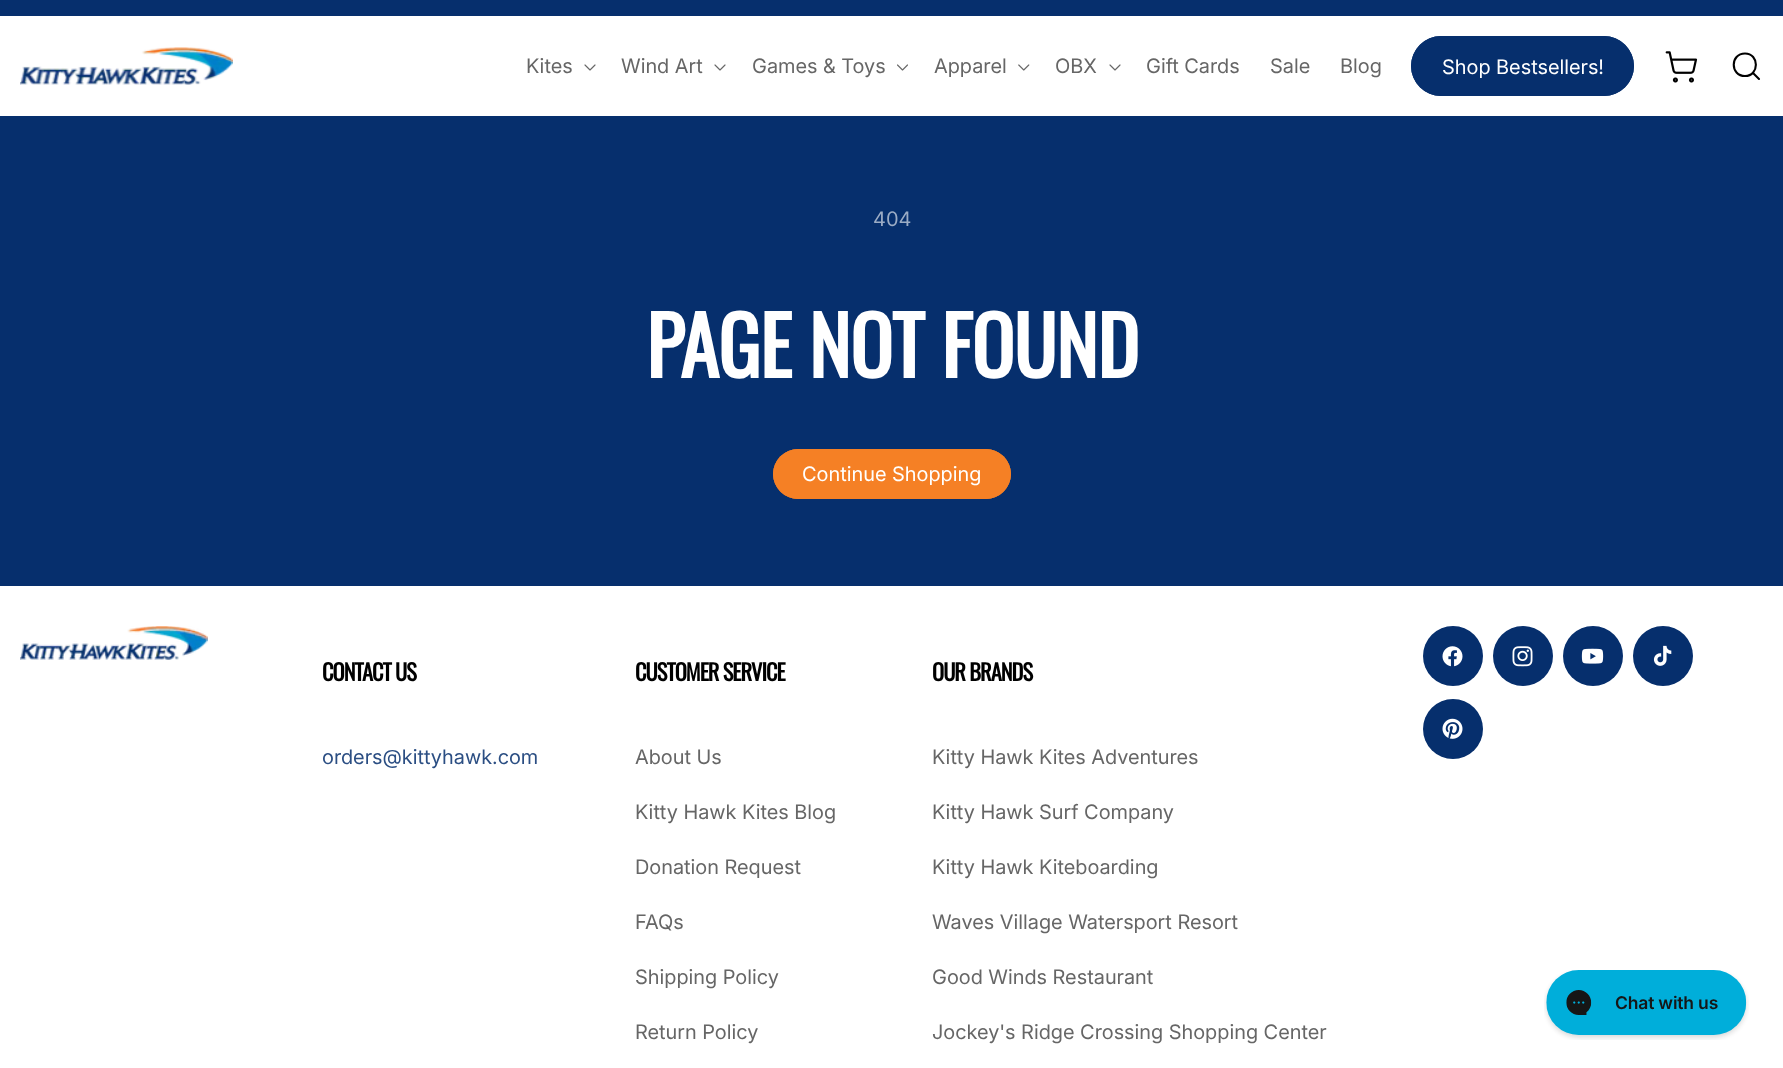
<svg xmlns="http://www.w3.org/2000/svg" width="1783" height="1068">
<rect width="100%" height="100%" fill="#062f6d"/>
<rect y="16" width="1783" height="100" fill="#fff"/>
<image x="20" y="47" width="213" height="38" href="media/1.png"/>
<text x="526" y="73" style="font-family:'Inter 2';font-size:20px;fill:#666">Kites</text>
<image x="584" y="64" width="12" height="7" href="media/2.png"/>
<text x="621" y="73" style="font-family:'Inter 2';font-size:20px;fill:#666">Wind Art</text>
<image x="714" y="64" width="12" height="7" href="media/2.png"/>
<text x="752" y="73" style="font-family:'Inter 2';font-size:20px;fill:#666">Games &amp; Toys</text>
<image x="897" y="64" width="11" height="7" href="media/3.png"/>
<text x="934" y="73" style="font-family:'Inter 2';font-size:20px;fill:#666">Apparel</text>
<image x="1018" y="64" width="12" height="7" href="media/4.png"/>
<text x="1055" y="73" style="font-family:'Inter 2';font-size:20px;fill:#666">OBX</text>
<image x="1109" y="64" width="12" height="7" href="media/2.png"/>
<text x="1146" y="73" style="font-family:'Inter 2';font-size:20px;fill:#666">Gift Cards</text>
<text x="1270" y="73" style="font-family:'Inter 2';font-size:20px;fill:#666">Sale</text>
<text x="1340" y="73" style="font-family:'Inter 2';font-size:20px;fill:#666">Blog</text>
<rect x="1411" y="36" width="223" height="60" rx="30" fill="#062f6d"/>
<rect x="1411.5" y="36.5" width="222" height="59" rx="29.5" fill="none" stroke="#062f6d"/>
<text x="1442" y="74" style="font-family:'Inter 2';font-size:20px;fill:#fff">Shop Bestsellers!</text>
<image x="1665" y="51" width="33" height="32" href="media/5.png"/>
<path d="M1745 76c14.5 0 14.5-22.5 0-22.5c-15 0-15 22.5 0 22.5zm14 3l-6-6" fill="none" stroke="#000" stroke-width="2.1" stroke-linecap="round" stroke-linejoin="round"/>
<text x="873" y="226" style="font-family:Inter;font-size:20px;fill:#9bacc5">404</text>
<text x="646" y="378" style="font-family:Oswald;font-size:80px;font-weight:bold;letter-spacing:-1px;fill:#fff">PAGE NOT FOUND</text>
<rect x="773" y="449" width="238" height="50" rx="25" fill="#f58025"/>
<rect x="773.5" y="449.5" width="237" height="49" rx="24.5" fill="none" stroke="#f58025"/>
<text x="802" y="481" style="font-family:'Inter 2';font-size:20px;fill:#fff">Continue Shopping</text>
<rect y="586" width="1783" height="482" fill="#fff"/>
<image x="20" y="626" width="188" height="34" href="media/6.png"/>
<text x="322" y="681" style="font-family:Oswald;font-size:22.5px;font-weight:bold;letter-spacing:-1px;fill:#000">CONTACT US</text>
<text x="322" y="764" style="font-family:'Inter 2';font-size:20px;fill:#2b4e83">orders@kittyhawk.com</text>
<text x="635" y="681" style="font-family:Oswald;font-size:22.5px;font-weight:bold;letter-spacing:-1px;fill:#000">CUSTOMER SERVICE</text>
<text x="635" y="764" style="font-family:'Inter 2';font-size:20px;fill:#666">About Us</text>
<text x="635" y="819" style="font-family:'Inter 2';font-size:20px;fill:#666">Kitty Hawk Kites Blog</text>
<text x="635" y="874" style="font-family:'Inter 2';font-size:20px;fill:#666">Donation Request</text>
<text x="635" y="929" style="font-family:'Inter 2';font-size:20px;fill:#666">FAQs</text>
<text x="635" y="984" style="font-family:'Inter 2';font-size:20px;fill:#666">Shipping Policy</text>
<text x="635" y="1039" style="font-family:'Inter 2';font-size:20px;fill:#666">Return Policy</text>
<text x="932" y="681" style="font-family:Oswald;font-size:22.5px;font-weight:bold;letter-spacing:-1px;fill:#000">OUR BRANDS</text>
<text x="932" y="764" style="font-family:'Inter 2';font-size:20px;fill:#666">Kitty Hawk Kites Adventures</text>
<text x="932" y="819" style="font-family:'Inter 2';font-size:20px;fill:#666">Kitty Hawk Surf Company</text>
<text x="932" y="874" style="font-family:'Inter 2';font-size:20px;fill:#666">Kitty Hawk Kiteboarding</text>
<text x="932" y="929" style="font-family:'Inter 2';font-size:20px;fill:#666">Waves Village Watersport Resort</text>
<text x="932" y="984" style="font-family:'Inter 2';font-size:20px;fill:#666">Good Winds Restaurant</text>
<text x="932" y="1039" style="font-family:'Inter 2';font-size:20px;fill:#666">Jockey's Ridge Crossing Shopping Center</text>
<circle cx="1453" cy="656" r="30" fill="#062f6d"/>
<image x="1442" y="646" width="21" height="21" href="media/7.png"/>
<circle cx="1523" cy="656" r="30" fill="#062f6d"/>
<image x="1512" y="646" width="21" height="21" href="media/8.png"/>
<circle cx="1593" cy="656" r="30" fill="#062f6d"/>
<image x="1581" y="648" width="23" height="16" href="media/9.png"/>
<circle cx="1663" cy="656" r="30" fill="#062f6d"/>
<image x="1653" y="645" width="19" height="21" href="media/10.png"/>
<circle cx="1453" cy="729" r="30" fill="#062f6d"/>
<image x="1442" y="718" width="21" height="21" href="media/11.png"/>
<image x="1544" y="970" width="205" height="70" href="media/12.png"/>
</svg>
